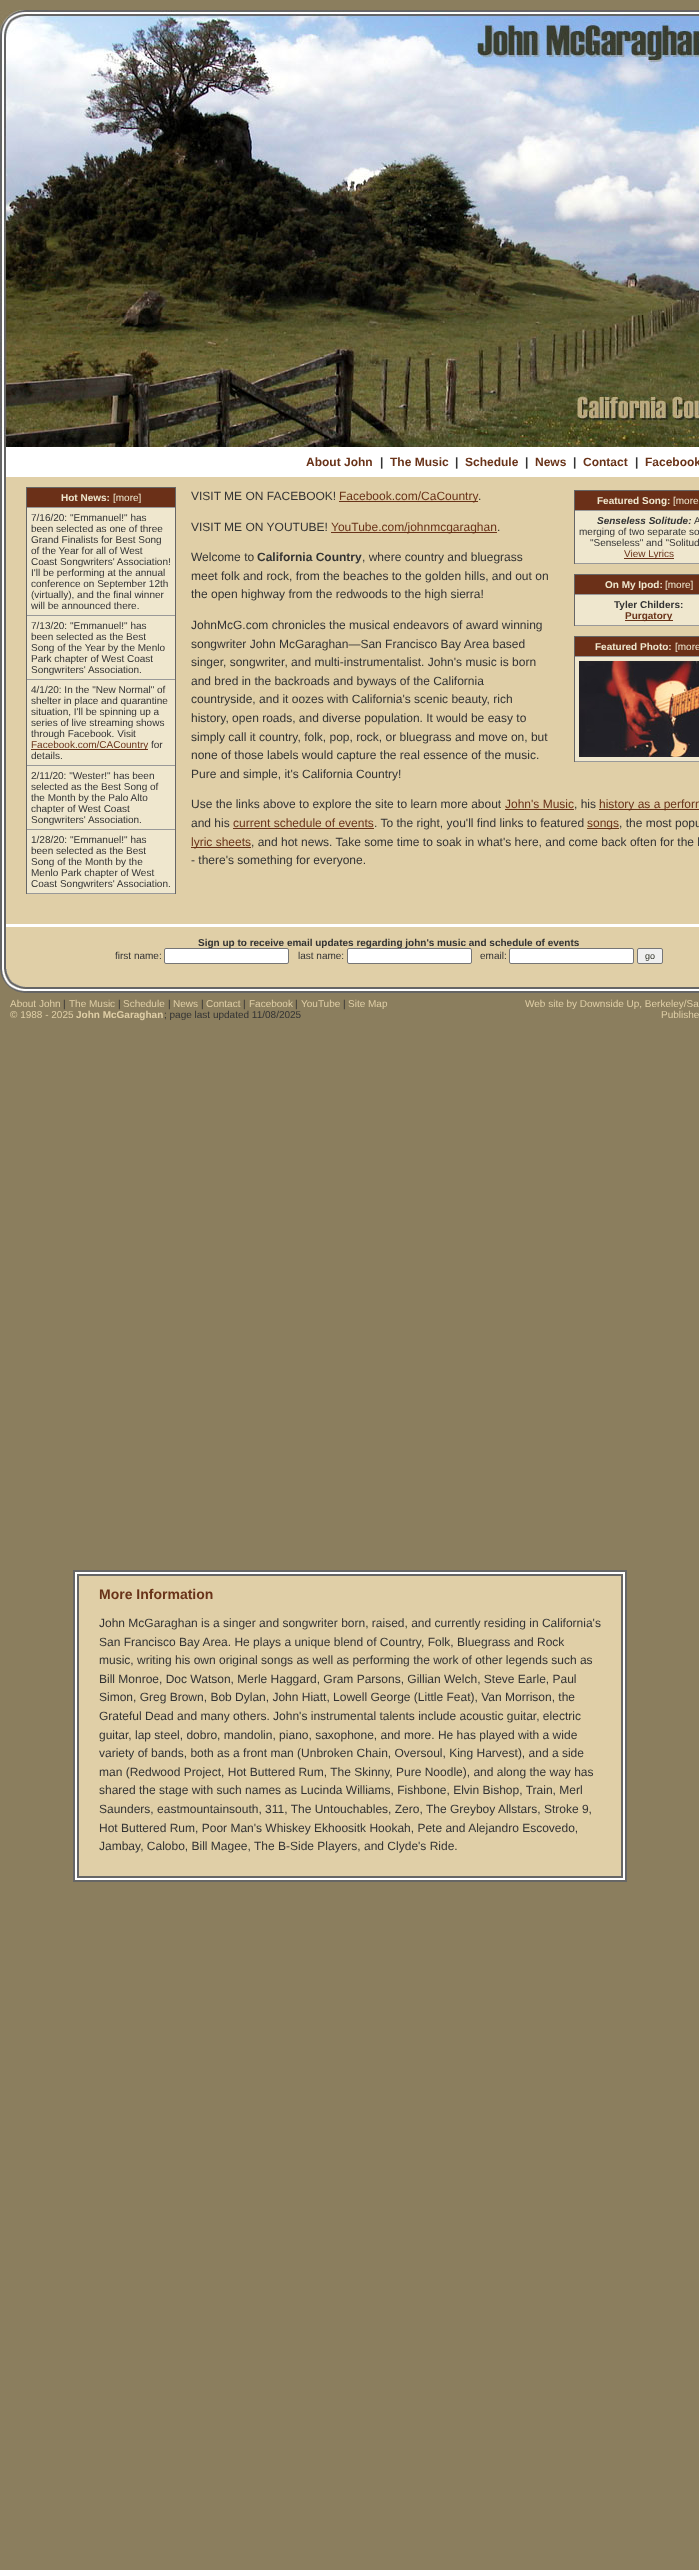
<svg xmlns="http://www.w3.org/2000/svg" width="699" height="2570">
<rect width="100%" height="100%" fill="#8b7e5e"/>
<image x="0" y="10" width="699" height="54" href="media/1.png"/>
<image x="0" y="64" width="699" height="251" href="media/2.png"/>
<image x="0" y="315" width="699" height="132" href="media/3.png"/>
<image x="0" y="447" width="6" height="3" href="media/4.png"/>
<rect x="6" y="447" width="693" height="30" fill="#fff"/>
<image x="0" y="450" width="6" height="24" href="media/5.png"/>
<text x="306" y="466" style="font-family:Liberation Sans;font-size:12px;font-weight:bold;fill:#693319">About John</text>
<text x="380" y="466" style="font-family:Liberation Sans;font-size:12px;font-weight:bold;fill:#333">|</text>
<text x="390" y="466" style="font-family:Liberation Sans;font-size:12px;font-weight:bold;fill:#693319">The Music</text>
<text x="455" y="466" style="font-family:Liberation Sans;font-size:12px;font-weight:bold;fill:#333">|</text>
<text x="465" y="466" style="font-family:Liberation Sans;font-size:12px;font-weight:bold;fill:#693319">Schedule</text>
<text x="525" y="466" style="font-family:Liberation Sans;font-size:12px;font-weight:bold;fill:#333">|</text>
<text x="535" y="466" style="font-family:Liberation Sans;font-size:12px;font-weight:bold;fill:#693319">News</text>
<text x="573" y="466" style="font-family:Liberation Sans;font-size:12px;font-weight:bold;fill:#333">|</text>
<text x="583" y="466" style="font-family:Liberation Sans;font-size:12px;font-weight:bold;fill:#693319">Contact</text>
<text x="635" y="466" style="font-family:Liberation Sans;font-size:12px;font-weight:bold;fill:#333">|</text>
<text x="645" y="466" style="font-family:Liberation Sans;font-size:12px;font-weight:bold;fill:#693319">Facebook</text>
<image x="0" y="474" width="6" height="3" href="media/4.png"/>
<image x="0" y="477" width="6" height="447" href="media/6.png"/>
<rect x="6" y="477" width="693" height="447" fill="#e0cfa7"/>
<rect x="27" y="508" width="148" height="385" fill="#efe7ce"/>
<rect x="26" y="487" width="150" height="1" fill="#666"/>
<rect x="175" y="487" width="1" height="407" fill="#666"/>
<rect x="26" y="487" width="1" height="407" fill="#666"/>
<rect x="27" y="488" width="148" height="19" fill="#6b3018"/>
<rect x="27" y="507" width="148" height="1" fill="#999"/>
<text x="61" y="501" style="font-family:Liberation Sans;font-size:10px;font-weight:bold;fill:#efe7ce">Hot News:</text>
<text x="113" y="501" style="font-family:Liberation Sans;font-size:10px;fill:#efe7ce">[more]</text>
<rect x="27" y="615" width="148" height="1" fill="#999"/>
<text x="31" y="521" style="font-family:Liberation Sans;font-size:10px;fill:#333">7/16/20: "Emmanuel!" has</text>
<text x="31" y="532" style="font-family:Liberation Sans;font-size:10px;fill:#333">been selected as one of three</text>
<text x="31" y="543" style="font-family:Liberation Sans;font-size:10px;fill:#333">Grand Finalists for Best Song</text>
<text x="31" y="554" style="font-family:Liberation Sans;font-size:10px;fill:#333">of the Year for all of West</text>
<text x="31" y="565" style="font-family:Liberation Sans;font-size:10px;fill:#333">Coast Songwriters' Association!</text>
<text x="31" y="576" style="font-family:Liberation Sans;font-size:10px;fill:#333">I'll be performing at the annual</text>
<text x="31" y="587" style="font-family:Liberation Sans;font-size:10px;fill:#333">conference on September 12th</text>
<text x="31" y="598" style="font-family:Liberation Sans;font-size:10px;fill:#333">(virtually), and the final winner</text>
<text x="31" y="609" style="font-family:Liberation Sans;font-size:10px;fill:#333">will be announced there.</text>
<rect x="27" y="679" width="148" height="1" fill="#999"/>
<text x="31" y="629" style="font-family:Liberation Sans;font-size:10px;fill:#333">7/13/20: "Emmanuel!" has</text>
<text x="31" y="640" style="font-family:Liberation Sans;font-size:10px;fill:#333">been selected as the Best</text>
<text x="31" y="651" style="font-family:Liberation Sans;font-size:10px;fill:#333">Song of the Year by the Menlo</text>
<text x="31" y="662" style="font-family:Liberation Sans;font-size:10px;fill:#333">Park chapter of West Coast</text>
<text x="31" y="673" style="font-family:Liberation Sans;font-size:10px;fill:#333">Songwriters' Association.</text>
<rect x="27" y="765" width="148" height="1" fill="#999"/>
<text x="31" y="693" style="font-family:Liberation Sans;font-size:10px;fill:#333">4/1/20: In the "New Normal" of</text>
<text x="31" y="704" style="font-family:Liberation Sans;font-size:10px;fill:#333">shelter in place and quarantine</text>
<text x="31" y="715" style="font-family:Liberation Sans;font-size:10px;fill:#333">situation, I'll be spinning up a</text>
<text x="31" y="726" style="font-family:Liberation Sans;font-size:10px;fill:#333">series of live streaming shows</text>
<text x="31" y="737" style="font-family:Liberation Sans;font-size:10px;fill:#333">through Facebook. Visit</text>
<rect x="31" y="749" width="117" height="1" fill="#693319"/>
<text x="31" y="748" style="font-family:Liberation Sans;font-size:10px;fill:#693319">Facebook.com/CACountry</text>
<text x="151" y="748" style="font-family:Liberation Sans;font-size:10px;fill:#333">for</text>
<text x="31" y="759" style="font-family:Liberation Sans;font-size:10px;fill:#333">details.</text>
<rect x="27" y="829" width="148" height="1" fill="#999"/>
<text x="31" y="779" style="font-family:Liberation Sans;font-size:10px;fill:#333">2/11/20: "Wester!" has been</text>
<text x="31" y="790" style="font-family:Liberation Sans;font-size:10px;fill:#333">selected as the Best Song of</text>
<text x="31" y="801" style="font-family:Liberation Sans;font-size:10px;fill:#333">the Month by the Palo Alto</text>
<text x="31" y="812" style="font-family:Liberation Sans;font-size:10px;fill:#333">chapter of West Coast</text>
<text x="31" y="823" style="font-family:Liberation Sans;font-size:10px;fill:#333">Songwriters' Association.</text>
<rect x="27" y="893" width="148" height="1" fill="#999"/>
<text x="31" y="843" style="font-family:Liberation Sans;font-size:10px;fill:#333">1/28/20: "Emmanuel!" has</text>
<text x="31" y="854" style="font-family:Liberation Sans;font-size:10px;fill:#333">been selected as the Best</text>
<text x="31" y="865" style="font-family:Liberation Sans;font-size:10px;fill:#333">Song of the Month by the</text>
<text x="31" y="876" style="font-family:Liberation Sans;font-size:10px;fill:#333">Menlo Park chapter of West</text>
<text x="31" y="887" style="font-family:Liberation Sans;font-size:10px;fill:#333">Coast Songwriters' Association.</text>
<text x="191" y="500" style="font-family:Liberation Sans;font-size:12px;fill:#333">VISIT ME ON FACEBOOK!</text>
<rect x="339" y="501" width="139" height="1" fill="#693319"/>
<text x="339" y="500" style="font-family:Liberation Sans;font-size:12px;fill:#693319">Facebook.com/CaCountry</text>
<text x="478" y="500" style="font-family:Liberation Sans;font-size:12px;fill:#333">.</text>
<rect x="575" y="511" width="124" height="52" fill="#efe7ce"/>
<rect x="574" y="490" width="125" height="1" fill="#666"/>
<rect x="574" y="490" width="1" height="74" fill="#666"/>
<rect x="575" y="491" width="124" height="19" fill="#6b3018"/>
<rect x="575" y="510" width="124" height="1" fill="#999"/>
<text x="597" y="504" style="font-family:Liberation Sans;font-size:10px;font-weight:bold;fill:#efe7ce">Featured Song:</text>
<text x="673" y="504" style="font-family:Liberation Sans;font-size:10px;fill:#efe7ce">[more</text>
<rect x="575" y="563" width="124" height="1" fill="#999"/>
<text x="597" y="524" style="font-family:Liberation Sans;font-size:10px;font-weight:bold;font-style:italic;fill:#333">Senseless Solitude:</text>
<text x="694" y="524" style="font-family:Liberation Sans;font-size:10px;fill:#333">A</text>
<text x="579" y="535" style="font-family:Liberation Sans;font-size:10px;fill:#333">merging of two separate so</text>
<text x="590" y="546" style="font-family:Liberation Sans;font-size:10px;fill:#333">"Senseless" and "Solitud</text>
<rect x="624" y="558" width="50" height="1" fill="#693319"/>
<text x="624" y="557" style="font-family:Liberation Sans;font-size:10px;fill:#693319">View Lyrics</text>
<rect x="575" y="595" width="124" height="30" fill="#efe7ce"/>
<rect x="574" y="574" width="125" height="1" fill="#666"/>
<rect x="574" y="574" width="1" height="52" fill="#666"/>
<rect x="575" y="575" width="124" height="19" fill="#6b3018"/>
<rect x="575" y="594" width="124" height="1" fill="#999"/>
<text x="605" y="588" style="font-family:Liberation Sans;font-size:10px;font-weight:bold;fill:#efe7ce">On My Ipod:</text>
<text x="665" y="588" style="font-family:Liberation Sans;font-size:10px;fill:#efe7ce">[more]</text>
<rect x="575" y="625" width="124" height="1" fill="#999"/>
<text x="614" y="608" style="font-family:Liberation Sans;font-size:10px;font-weight:bold;fill:#333">Tyler Childers:</text>
<rect x="625" y="620" width="48" height="1" fill="#693319"/>
<text x="625" y="619" style="font-family:Liberation Sans;font-size:10px;font-weight:bold;fill:#693319">Purgatory</text>
<rect x="575" y="657" width="124" height="104" fill="#efe7ce"/>
<rect x="574" y="636" width="125" height="1" fill="#666"/>
<rect x="574" y="636" width="1" height="126" fill="#666"/>
<rect x="575" y="637" width="124" height="19" fill="#6b3018"/>
<rect x="575" y="656" width="124" height="1" fill="#999"/>
<text x="595" y="650" style="font-family:Liberation Sans;font-size:10px;font-weight:bold;fill:#efe7ce">Featured Photo:</text>
<text x="675" y="650" style="font-family:Liberation Sans;font-size:10px;fill:#efe7ce">[more</text>
<rect x="575" y="761" width="124" height="1" fill="#999"/>
<image x="579" y="661" width="120" height="96" href="media/7.png"/>
<text x="191" y="531" style="font-family:Liberation Sans;font-size:12px;fill:#333">VISIT ME ON YOUTUBE!</text>
<rect x="331" y="532" width="166" height="1" fill="#693319"/>
<text x="331" y="531" style="font-family:Liberation Sans;font-size:12px;fill:#693319">YouTube.com/johnmcgaraghan</text>
<text x="497" y="531" style="font-family:Liberation Sans;font-size:12px;fill:#333">.</text>
<text x="191" y="561" style="font-family:Liberation Sans;font-size:12px;fill:#333">Welcome to</text>
<text x="257" y="561" style="font-family:Liberation Sans;font-size:12px;font-weight:bold;fill:#333">California Country</text>
<text x="362" y="561" style="font-family:Liberation Sans;font-size:12px;fill:#333">, where country and bluegrass</text>
<text x="191" y="580" style="font-family:Liberation Sans;font-size:12px;fill:#333">meet folk and rock, from the beaches to the golden hills, and out on</text>
<text x="191" y="598" style="font-family:Liberation Sans;font-size:12px;fill:#333">the open highway from the redwoods to the high sierra!</text>
<text x="191" y="629" style="font-family:Liberation Sans;font-size:12px;fill:#333">JohnMcG.com chronicles the musical endeavors of award winning</text>
<text x="191" y="648" style="font-family:Liberation Sans;font-size:12px;fill:#333">songwriter John McGaraghan—San Francisco Bay Area based</text>
<text x="191" y="666" style="font-family:Liberation Sans;font-size:12px;fill:#333">singer, songwriter, and multi-instrumentalist. John's music is born</text>
<text x="191" y="685" style="font-family:Liberation Sans;font-size:12px;fill:#333">and bred in the backroads and byways of the California</text>
<text x="191" y="703" style="font-family:Liberation Sans;font-size:12px;fill:#333">countryside, and it oozes with California's scenic beauty, rich</text>
<text x="191" y="722" style="font-family:Liberation Sans;font-size:12px;fill:#333">history, open roads, and diverse population. It would be easy to</text>
<text x="191" y="741" style="font-family:Liberation Sans;font-size:12px;fill:#333">simply call it country, folk, pop, rock, or bluegrass and move on, but</text>
<text x="191" y="759" style="font-family:Liberation Sans;font-size:12px;fill:#333">none of those labels would capture the real essence of the music.</text>
<text x="191" y="778" style="font-family:Liberation Sans;font-size:12px;fill:#333">Pure and simple, it's California Country!</text>
<text x="191" y="808" style="font-family:Liberation Sans;font-size:12px;fill:#333">Use the links above to explore the site to learn more about</text>
<text x="505" y="808" style="font-family:Liberation Sans;font-size:12px;fill:#693319">John's Music</text>
<rect x="505" y="809" width="69" height="1" fill="#693319"/>
<text x="574" y="808" style="font-family:Liberation Sans;font-size:12px;fill:#333">, his</text>
<rect x="599" y="809" width="100" height="1" fill="#693319"/>
<text x="599" y="808" style="font-family:Liberation Sans;font-size:12px;fill:#693319">history as a perform</text>
<text x="191" y="827" style="font-family:Liberation Sans;font-size:12px;fill:#333">and his</text>
<text x="233" y="827" style="font-family:Liberation Sans;font-size:12px;fill:#693319">current schedule of events</text>
<rect x="233" y="828" width="141" height="1" fill="#693319"/>
<text x="374" y="827" style="font-family:Liberation Sans;font-size:12px;fill:#333">. To the right, you'll find links to featured</text>
<rect x="587" y="828" width="32" height="1" fill="#693319"/>
<text x="587" y="827" style="font-family:Liberation Sans;font-size:12px;fill:#693319">songs</text>
<text x="619" y="827" style="font-family:Liberation Sans;font-size:12px;fill:#333">, the most popu</text>
<rect x="191" y="847" width="60" height="1" fill="#693319"/>
<text x="191" y="846" style="font-family:Liberation Sans;font-size:12px;fill:#693319">lyric sheets</text>
<text x="251" y="846" style="font-family:Liberation Sans;font-size:12px;fill:#333">, and hot news. Take some time to soak in what's here, and come back often for the l</text>
<text x="191" y="864" style="font-family:Liberation Sans;font-size:12px;fill:#333">- there's something for everyone.</text>
<image x="0" y="924" width="6" height="3" href="media/4.png"/>
<rect x="6" y="924" width="693" height="3" fill="#fff"/>
<image x="0" y="927" width="6" height="42" href="media/8.png"/>
<rect x="6" y="927" width="693" height="42" fill="#e0cfa7"/>
<text x="198" y="946" style="font-family:Liberation Sans;font-size:10px;font-weight:bold;fill:#333">Sign up to receive email updates regarding john's music and schedule of events</text>
<text x="115" y="959" style="font-family:Liberation Sans;font-size:10px;fill:#333">first name:</text>
<rect x="164.5" y="948.5" width="124" height="15" rx="1.5" fill="#fff" stroke="#767676"/>
<text x="298" y="959" style="font-family:Liberation Sans;font-size:10px;fill:#333">last name:</text>
<rect x="347.5" y="948.5" width="124" height="15" rx="1.5" fill="#fff" stroke="#767676"/>
<text x="480" y="959" style="font-family:Liberation Sans;font-size:10px;fill:#333">email:</text>
<rect x="509.5" y="948.5" width="124" height="15" rx="1.5" fill="#fff" stroke="#767676"/>
<rect x="637.5" y="948.5" width="25" height="15" rx="1.5" fill="#efefef" stroke="#767676"/>
<text x="645" y="959" style="font-family:Liberation Sans;font-size:9px;fill:#303327">go</text>
<image x="0" y="969" width="699" height="24" href="media/9.png"/>
<text x="10" y="1007" style="font-family:Liberation Sans;font-size:10px;fill:#e0cfa7">About John</text>
<text x="63" y="1007" style="font-family:Liberation Sans;font-size:10px;fill:#333">|</text>
<text x="69" y="1007" style="font-family:Liberation Sans;font-size:10px;fill:#e0cfa7">The Music</text>
<text x="118" y="1007" style="font-family:Liberation Sans;font-size:10px;fill:#333">|</text>
<text x="123" y="1007" style="font-family:Liberation Sans;font-size:10px;fill:#e0cfa7">Schedule</text>
<text x="168" y="1007" style="font-family:Liberation Sans;font-size:10px;fill:#333">|</text>
<text x="173" y="1007" style="font-family:Liberation Sans;font-size:10px;fill:#e0cfa7">News</text>
<text x="201" y="1007" style="font-family:Liberation Sans;font-size:10px;fill:#333">|</text>
<text x="206" y="1007" style="font-family:Liberation Sans;font-size:10px;fill:#e0cfa7">Contact</text>
<text x="243" y="1007" style="font-family:Liberation Sans;font-size:10px;fill:#333">|</text>
<text x="249" y="1007" style="font-family:Liberation Sans;font-size:10px;fill:#e0cfa7">Facebook</text>
<text x="295" y="1007" style="font-family:Liberation Sans;font-size:10px;fill:#333">|</text>
<text x="301" y="1007" style="font-family:Liberation Sans;font-size:10px;fill:#e0cfa7">YouTube</text>
<text x="343" y="1007" style="font-family:Liberation Sans;font-size:10px;fill:#333">|</text>
<text x="348" y="1007" style="font-family:Liberation Sans;font-size:10px;fill:#e0cfa7">Site Map</text>
<text x="10" y="1018" style="font-family:Liberation Sans;font-size:10px;fill:#e0cfa7">© 1988 - 2025</text>
<text x="76" y="1018" style="font-family:Liberation Sans;font-size:10px;font-weight:bold;fill:#e0cfa7">John McGaraghan</text>
<text x="164" y="1018" style="font-family:Liberation Sans;font-size:10px;fill:#333">; page last updated 11/08/2025</text>
<text x="525" y="1007" style="font-family:Liberation Sans;font-size:10px;fill:#e0cfa7">Web site by Downside Up, Berkeley/Sa</text>
<text x="661" y="1018" style="font-family:Liberation Sans;font-size:10px;fill:#e0cfa7">Publishe</text>
<rect x="74" y="1571" width="552" height="310" fill="none" stroke="#666" stroke-width="2"/>
<rect x="76" y="1573" width="548" height="306" fill="none" stroke="#fff" stroke-width="2"/>
<rect x="78" y="1575" width="544" height="302" fill="#e0cfa7" stroke="#666" stroke-width="2"/>
<text x="99" y="1599" style="font-family:Liberation Sans;font-size:14px;font-weight:bold;fill:#693319">More Information</text>
<text x="99" y="1627" style="font-family:Liberation Sans;font-size:12px;fill:#333">John McGaraghan is a singer and songwriter born, raised, and currently residing in California's</text>
<text x="99" y="1646" style="font-family:Liberation Sans;font-size:12px;fill:#333">San Francisco Bay Area. He plays a unique blend of Country, Folk, Bluegrass and Rock</text>
<text x="99" y="1664" style="font-family:Liberation Sans;font-size:12px;fill:#333">music, writing his own original songs as well as performing the work of other legends such as</text>
<text x="99" y="1683" style="font-family:Liberation Sans;font-size:12px;fill:#333">Bill Monroe, Doc Watson, Merle Haggard, Gram Parsons, Gillian Welch, Steve Earle, Paul</text>
<text x="99" y="1701" style="font-family:Liberation Sans;font-size:12px;fill:#333">Simon, Greg Brown, Bob Dylan, John Hiatt, Lowell George (Little Feat), Van Morrison, the</text>
<text x="99" y="1720" style="font-family:Liberation Sans;font-size:12px;fill:#333">Grateful Dead and many others. John's instrumental talents include acoustic guitar, electric</text>
<text x="99" y="1739" style="font-family:Liberation Sans;font-size:12px;fill:#333">guitar, lap steel, dobro, mandolin, piano, saxophone, and more. He has played with a wide</text>
<text x="99" y="1757" style="font-family:Liberation Sans;font-size:12px;fill:#333">variety of bands, both as a front man (Unbroken Chain, Oversoul, King Harvest), and a side</text>
<text x="99" y="1776" style="font-family:Liberation Sans;font-size:12px;fill:#333">man (Redwood Project, Hot Buttered Rum, The Skinny, Pure Noodle), and along the way has</text>
<text x="99" y="1794" style="font-family:Liberation Sans;font-size:12px;fill:#333">shared the stage with such names as Lucinda Williams, Fishbone, Elvin Bishop, Train, Merl</text>
<text x="99" y="1813" style="font-family:Liberation Sans;font-size:12px;fill:#333">Saunders, eastmountainsouth, 311, The Untouchables, Zero, The Greyboy Allstars, Stroke 9,</text>
<text x="99" y="1832" style="font-family:Liberation Sans;font-size:12px;fill:#333">Hot Buttered Rum, Poor Man's Whiskey Ekhoositk Hookah, Pete and Alejandro Escovedo,</text>
<text x="99" y="1850" style="font-family:Liberation Sans;font-size:12px;fill:#333">Jambay, Calobo, Bill Magee, The B-Side Players, and Clyde's Ride.</text>
</svg>
